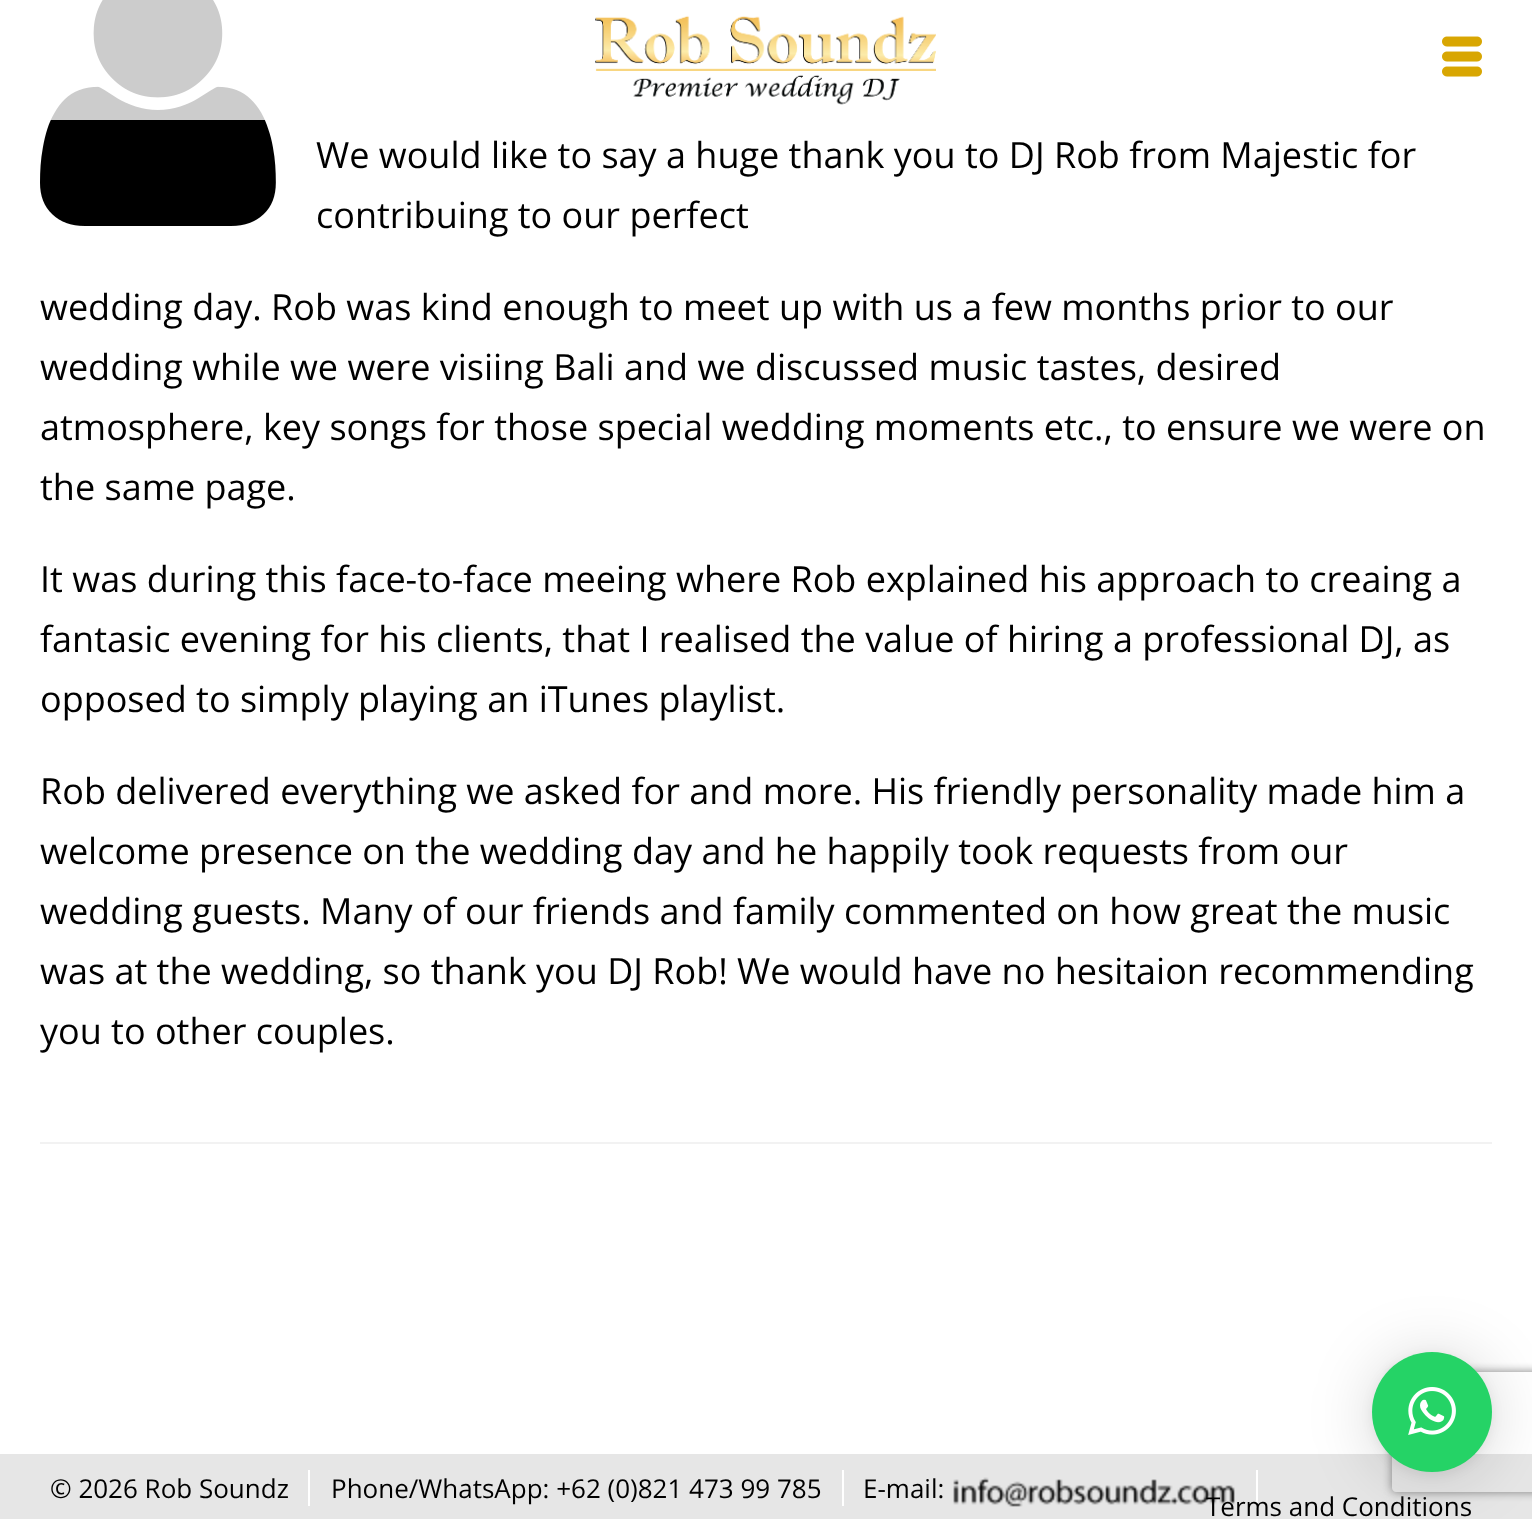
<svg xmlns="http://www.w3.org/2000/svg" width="1532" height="1519">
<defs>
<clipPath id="clip1"><path d="M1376 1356h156v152h-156zm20 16h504c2 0 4 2 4 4v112c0 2-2 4-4 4h-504c-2 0-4-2-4-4v-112c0-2 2-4 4-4z" clip-rule="evenodd"/></clipPath>
</defs>
<rect width="100%" height="100%" fill="#fff"/>
<image x="40" y="0" width="236" height="226" href="media/3.png"/>
<rect x="50" width="215" height="120" fill="#ffffffcc"/>
<image x="595" y="15" width="341" height="90" href="media/1.png"/>
<image x="1442" y="36" width="40" height="41" href="media/2.png"/>
<text x="316" y="168" style="font-family:Open Sans;font-size:36px;fill:#000">We would like to say a huge thank you to DJ Rob from Majestic for</text>
<text x="316" y="228" style="font-family:Open Sans;font-size:36px;fill:#000">contribuing to our perfect</text>
<text x="40" y="320" style="font-family:Open Sans;font-size:36px;fill:#000">wedding day. Rob was kind enough to meet up with us a few months prior to our</text>
<text x="40" y="380" style="font-family:Open Sans;font-size:36px;fill:#000">wedding while we were visiing Bali and we discussed music tastes, desired</text>
<text x="40" y="440" style="font-family:Open Sans;font-size:36px;fill:#000">atmosphere, key songs for those special wedding moments etc., to ensure we were on</text>
<text x="40" y="500" style="font-family:Open Sans;font-size:36px;fill:#000">the same page.</text>
<text x="40" y="592" style="font-family:Open Sans;font-size:36px;fill:#000">It was during this face-to-face meeing where Rob explained his approach to creaing a</text>
<text x="40" y="652" style="font-family:Open Sans;font-size:36px;fill:#000">fantasic evening for his clients, that I realised the value of hiring a professional DJ, as</text>
<text x="40" y="712" style="font-family:Open Sans;font-size:36px;fill:#000">opposed to simply playing an iTunes playlist.</text>
<text x="40" y="804" style="font-family:Open Sans;font-size:36px;fill:#000">Rob delivered everything we asked for and more. His friendly personality made him a</text>
<text x="40" y="864" style="font-family:Open Sans;font-size:36px;fill:#000">welcome presence on the wedding day and he happily took requests from our</text>
<text x="40" y="924" style="font-family:Open Sans;font-size:36px;fill:#000">wedding guests. Many of our friends and family commented on how great the music</text>
<text x="40" y="984" style="font-family:Open Sans;font-size:36px;fill:#000">was at the wedding, so thank you DJ Rob! We would have no hesitaion recommending</text>
<text x="40" y="1044" style="font-family:Open Sans;font-size:36px;fill:#000">you to other couples.</text>
<rect x="40" y="1142" width="1452" height="2" fill="#f2f2f2"/>
<rect y="1454" width="1532" height="65" fill="#e6e6e6"/>
<rect x="308" y="1470" width="2" height="36" fill="#fff"/>
<text x="50" y="1498" style="font-family:Open Sans;font-size:26px;fill:#000">© 2026 Rob Soundz</text>
<rect x="842" y="1470" width="2" height="36" fill="#fff"/>
<text x="331" y="1498" style="font-family:Open Sans;font-size:26px;fill:#000">Phone/WhatsApp: +62 (0)821 473 99 785</text>
<rect x="1256" y="1470" width="2" height="38" fill="#fff"/>
<text x="863" y="1498" style="font-family:Open Sans;font-size:26px;fill:#000">E-mail:</text>
<image x="953" y="1477" width="282" height="30" href="media/4.png"/>
<text x="1206" y="1516" style="font-family:Open Sans;font-size:26px;fill:#000">Terms and Conditions</text>
<rect x="1372" y="1356" width="120" height="120" rx="60" fill="#00000029" filter="blur(32px)"/>
<rect x="1372" y="1354" width="120" height="120" rx="60" fill="#0000000f" filter="blur(6px)"/>
<g clip-path="url(#clip1)">
<rect x="1392" y="1372" width="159" height="120" rx="4" fill="#808080" filter="blur(5px)"/>
</g>
<circle cx="1432" cy="1412" r="60" fill="#25d366"/>
<image x="1408" y="1387" width="48" height="48" href="media/5.png"/>
</svg>
